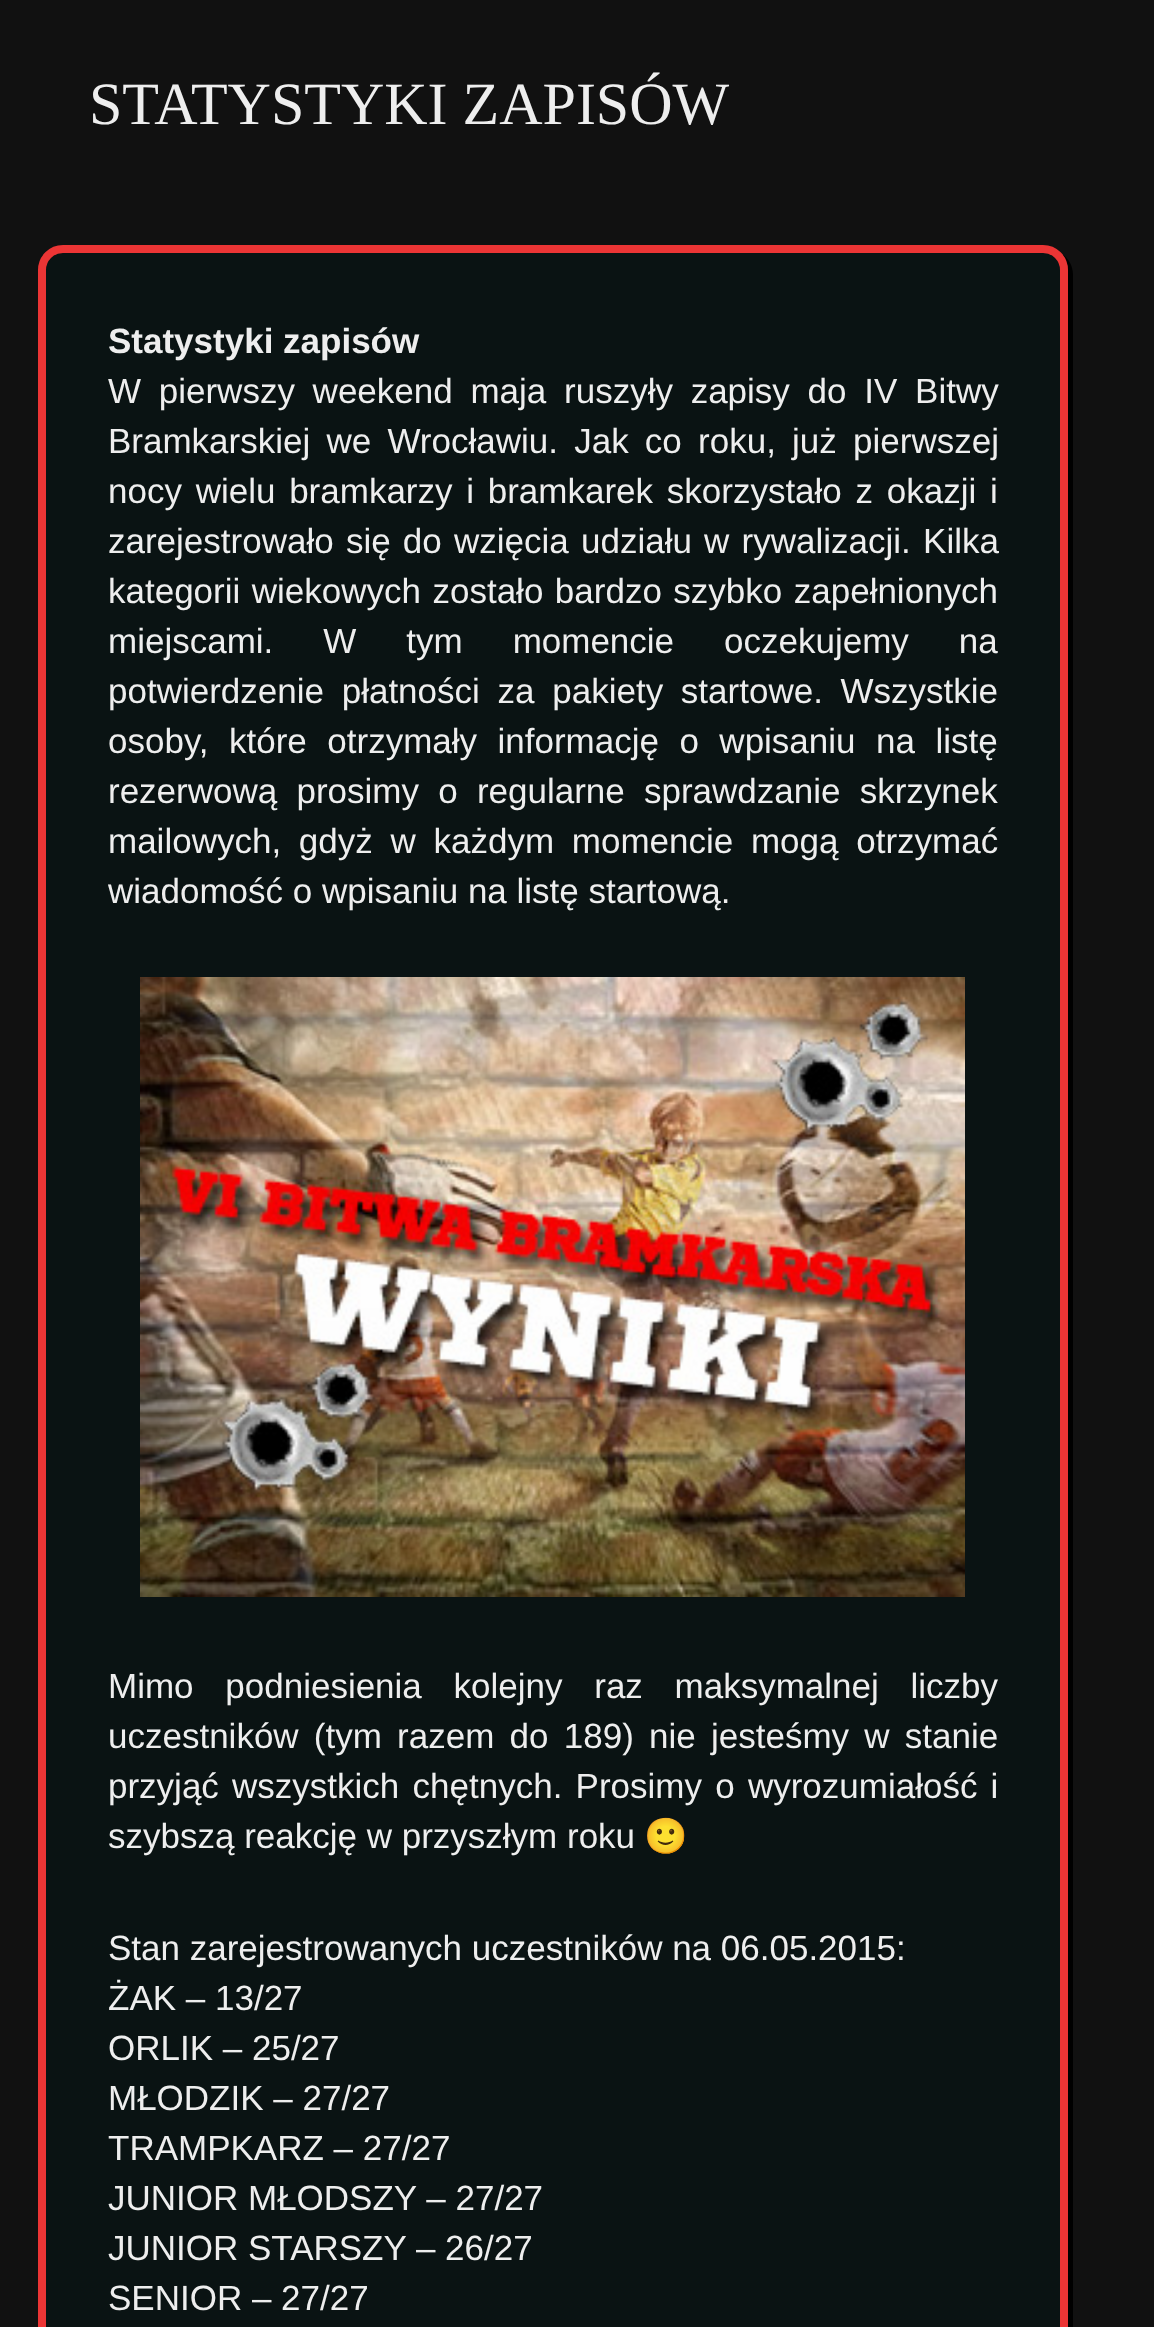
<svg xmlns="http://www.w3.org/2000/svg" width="1154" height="2327">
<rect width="100%" height="100%" fill="#111"/>
<text x="89" y="124" style="font-family:Liberation Serif;font-size:60px;fill:#eee">STATYSTYKI ZAPISÓW</text>
<path d="M48 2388c4 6 12 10 20 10h980c14 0 25-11 25-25v-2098c0-9-4-16-11-21c3 5 6 10 6 16v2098c0 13-12 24-26 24h-980c-5 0-10-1-14-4z" fill="#000"/>
<rect x="42" y="249" width="1022" height="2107" rx="21" fill="#00161666" stroke="#ec3535" stroke-width="8"/>
<text x="108" y="353" style="font-family:Liberation Sans;font-size:35px;font-weight:bold;fill:#eee">Statystyki zapisów</text>
<text x="108" y="403" word-spacing="8" style="font-family:Liberation Sans;font-size:35px;fill:#eee">W pierwszy weekend maja ruszyły zapisy do IV Bitwy</text>
<text x="108" y="453" word-spacing="6.5" style="font-family:Liberation Sans;font-size:35px;fill:#eee">Bramkarskiej we Wrocławiu. Jak co roku, już pierwszej</text>
<text x="108" y="503" word-spacing="4" style="font-family:Liberation Sans;font-size:35px;fill:#eee">nocy wielu bramkarzy i bramkarek skorzystało z okazji i</text>
<text x="108" y="553" word-spacing="2.5" style="font-family:Liberation Sans;font-size:35px;fill:#eee">zarejestrowało się do wzięcia udziału w rywalizacji. Kilka</text>
<text x="108" y="603" word-spacing="1.75" style="font-family:Liberation Sans;font-size:35px;fill:#eee">kategorii wiekowych zostało bardzo szybko zapełnionych</text>
<text x="108" y="653" word-spacing="40.25" style="font-family:Liberation Sans;font-size:35px;fill:#eee">miejscami. W tym momencie oczekujemy na</text>
<text x="108" y="703" word-spacing="8" style="font-family:Liberation Sans;font-size:35px;fill:#eee">potwierdzenie płatności za pakiety startowe. Wszystkie</text>
<text x="108" y="753" word-spacing="10.75" style="font-family:Liberation Sans;font-size:35px;fill:#eee">osoby, które otrzymały informację o wpisaniu na listę</text>
<text x="108" y="803" word-spacing="9.5" style="font-family:Liberation Sans;font-size:35px;fill:#eee">rezerwową prosimy o regularne sprawdzanie skrzynek</text>
<text x="108" y="853" word-spacing="8" style="font-family:Liberation Sans;font-size:35px;fill:#eee">mailowych, gdyż w każdym momencie mogą otrzymać</text>
<text x="108" y="903" style="font-family:Liberation Sans;font-size:35px;fill:#eee">wiadomość o wpisaniu na listę startową.</text>
<image x="140" y="977" width="825" height="620" href="media/1.png"/>
<text x="108" y="1698" word-spacing="22" style="font-family:Liberation Sans;font-size:35px;fill:#eee">Mimo podniesienia kolejny raz maksymalnej liczby</text>
<text x="108" y="1748" word-spacing="5.5" style="font-family:Liberation Sans;font-size:35px;fill:#eee">uczestników (tym razem do 189) nie jesteśmy w stanie</text>
<text x="108" y="1798" word-spacing="3.5" style="font-family:Liberation Sans;font-size:35px;fill:#eee">przyjąć wszystkich chętnych. Prosimy o wyrozumiałość i</text>
<text x="108" y="1848" style="font-family:Liberation Sans;font-size:35px;fill:#eee">szybszą reakcję w przyszłym roku</text>
<text x="644" y="1848" style="font-family:Noto Color Emoji;font-size:35px;fill:#eee">🙂</text>
<text x="108" y="1960" style="font-family:Liberation Sans;font-size:35px;fill:#eee">Stan zarejestrowanych uczestników na 06.05.2015:</text>
<text x="108" y="2010" style="font-family:Liberation Sans;font-size:35px;fill:#eee">ŻAK – 13/27</text>
<text x="108" y="2060" style="font-family:Liberation Sans;font-size:35px;fill:#eee">ORLIK – 25/27</text>
<text x="108" y="2110" style="font-family:Liberation Sans;font-size:35px;fill:#eee">MŁODZIK – 27/27</text>
<text x="108" y="2160" style="font-family:Liberation Sans;font-size:35px;fill:#eee">TRAMPKARZ – 27/27</text>
<text x="108" y="2210" style="font-family:Liberation Sans;font-size:35px;fill:#eee">JUNIOR MŁODSZY – 27/27</text>
<text x="108" y="2260" style="font-family:Liberation Sans;font-size:35px;fill:#eee">JUNIOR STARSZY – 26/27</text>
<text x="108" y="2310" style="font-family:Liberation Sans;font-size:35px;fill:#eee">SENIOR – 27/27</text>
</svg>
